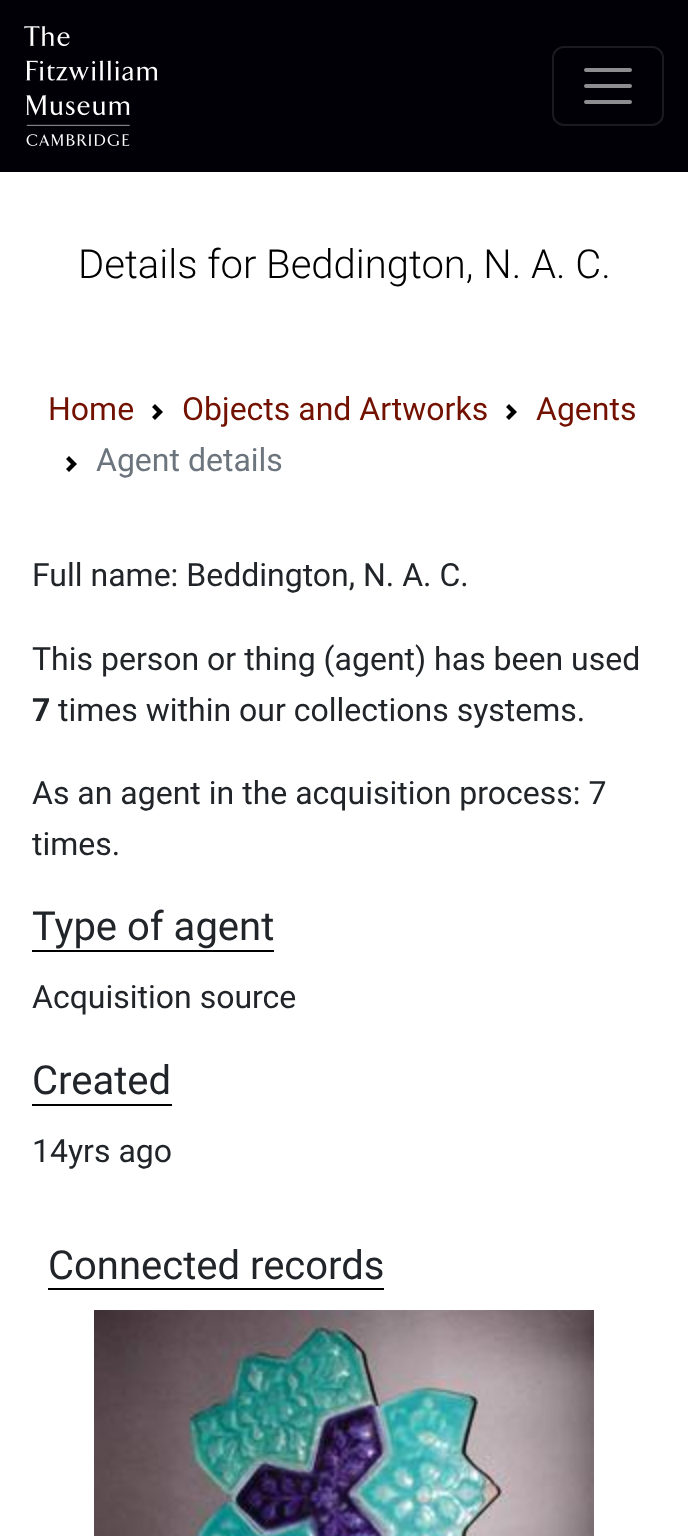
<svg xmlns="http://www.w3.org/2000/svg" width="688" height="1536">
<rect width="100%" height="100%" fill="#fff"/>
<rect width="688" height="172" fill="#010007"/>
<image x="24" y="26" width="134" height="120" href="media/1.png"/>
<rect x="553" y="47" width="110" height="78" rx="11" fill="none" stroke="#1a1a20" stroke-width="2"/>
<path d="M586 70h44m-44 16h44m-44 16h44" fill="none" stroke="#8d8c8f" stroke-width="4" stroke-linecap="round"/>
<text x="78" y="278" style="font-family:Roboto;font-size:40px;font-weight:300;fill:#000">Details for Beddington, N. A. C.</text>
<text x="48" y="420" style="font-family:Roboto;font-size:32px;fill:#731100">Home</text>
<image x="152" y="404" width="11" height="16" href="media/2.png"/>
<text x="182" y="420" style="font-family:Roboto;font-size:32px;fill:#731100">Objects and Artworks</text>
<image x="506" y="404" width="11" height="16" href="media/3.png"/>
<text x="536" y="420" style="font-family:Roboto;font-size:32px;fill:#731100">Agents</text>
<image x="66" y="456" width="11" height="16" href="media/2.png"/>
<text x="96" y="471" style="font-family:Roboto;font-size:32px;fill:#6c757d">Agent details</text>
<text x="32" y="586" style="font-family:Roboto;font-size:32px;fill:#212529">Full name: Beddington, N. A. C.</text>
<text x="32" y="670" style="font-family:Roboto;font-size:32px;fill:#212529">This person or thing (agent) has been used</text>
<text x="32" y="721" style="font-family:Roboto;font-size:32px;font-weight:bold;fill:#212529">7</text>
<text x="58" y="721" style="font-family:Roboto;font-size:32px;fill:#212529">times within our collections systems.</text>
<text x="32" y="804" style="font-family:Roboto;font-size:32px;fill:#212529">As an agent in the acquisition process: 7</text>
<text x="32" y="855" style="font-family:Roboto;font-size:32px;fill:#212529">times.</text>
<rect x="32" y="950" width="242" height="2" fill="#000"/>
<text x="32" y="940" style="font-family:Roboto;font-size:40px;fill:#212529">Type of agent</text>
<text x="32" y="1008" style="font-family:Roboto;font-size:32px;fill:#212529">Acquisition source</text>
<rect x="32" y="1104" width="140" height="2" fill="#000"/>
<text x="32" y="1094" style="font-family:Roboto;font-size:40px;fill:#212529">Created</text>
<text x="32" y="1162" style="font-family:Roboto;font-size:32px;fill:#212529">14yrs ago</text>
<rect x="48" y="1288" width="336" height="2" fill="#000"/>
<text x="48" y="1279" style="font-family:Roboto;font-size:40px;fill:#212529">Connected records</text>
<image x="94" y="1310" width="500" height="226" href="media/4.png"/>
</svg>
